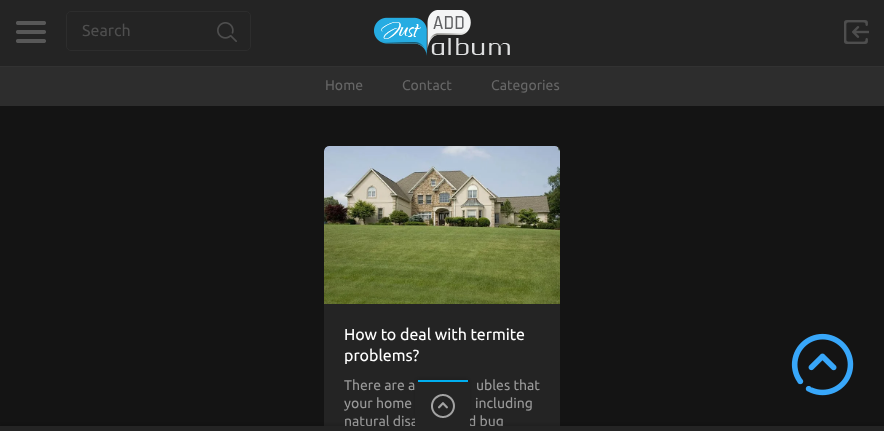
<svg xmlns="http://www.w3.org/2000/svg" width="884" height="431">
<rect width="100%" height="100%" fill="#141414"/>
<rect width="884" height="66" fill="#242424"/>
<image x="16" y="21" width="30" height="22" href="media/1.png"/>
<rect x="66.5" y="11.5" width="184" height="39" rx="4.5" fill="none" stroke="#2d2d2d"/>
<text x="82" y="36" style="font-family:Ubuntu;font-size:16px;fill:#4e4e4e">Search</text>
<image x="217" y="22" width="20" height="20" href="media/2.png"/>
<image x="374" y="10" width="136" height="46" href="media/3.png"/>
<image x="844" y="20" width="25" height="24" href="media/4.png"/>
<rect y="67" width="884" height="39" fill="#2d2d2d"/>
<rect y="66" width="884" height="1" fill="#323232"/>
<text x="325" y="90" style="font-family:Ubuntu;font-size:14px;fill:#666">Home</text>
<text x="402" y="90" style="font-family:Ubuntu;font-size:14px;fill:#666">Contact</text>
<text x="491" y="90" style="font-family:Ubuntu;font-size:14px;fill:#666">Categories</text>
<rect x="324" y="146" width="236" height="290" rx="5" fill="#242424"/>
<image x="324" y="146" width="236" height="158" href="media/5.png"/>
<text x="344" y="340" style="font-family:Ubuntu;font-size:16px;fill:#fff">How to deal with termite</text>
<text x="344" y="361" style="font-family:Ubuntu;font-size:16px;fill:#fff">problems?</text>
<text x="344" y="390" style="font-family:Ubuntu;font-size:14px;fill:#999">There are a</text>
<text x="476" y="390" style="font-family:Ubuntu;font-size:14px;fill:#999">ubles that</text>
<text x="344" y="408" style="font-family:Ubuntu;font-size:14px;fill:#999">your home</text>
<text x="475" y="408" style="font-family:Ubuntu;font-size:14px;fill:#999">including</text>
<text x="344" y="426" style="font-family:Ubuntu;font-size:14px;fill:#999">natural disa</text>
<text x="468" y="426" style="font-family:Ubuntu;font-size:14px;fill:#999">d bug</text>
<rect y="424" width="884" height="5" fill="#0000001a" filter="blur(1px)"/>
<image x="791" y="333" width="63" height="63" href="media/6.png"/>
<rect y="426" width="884" height="5" fill="#242424"/>
<rect x="415" y="378" width="55" height="46" rx="5" fill="#0000001a" filter="blur(1px)"/>
<path d="M420 380h45c3 0 5 2 5 5v41h-55v-41c0-3 2-5 5-5z" fill="#242424"/>
<image x="431" y="394" width="24" height="24" href="media/7.png"/>
<rect x="418" y="380" width="50" height="2" fill="#00aeef"/>
</svg>
